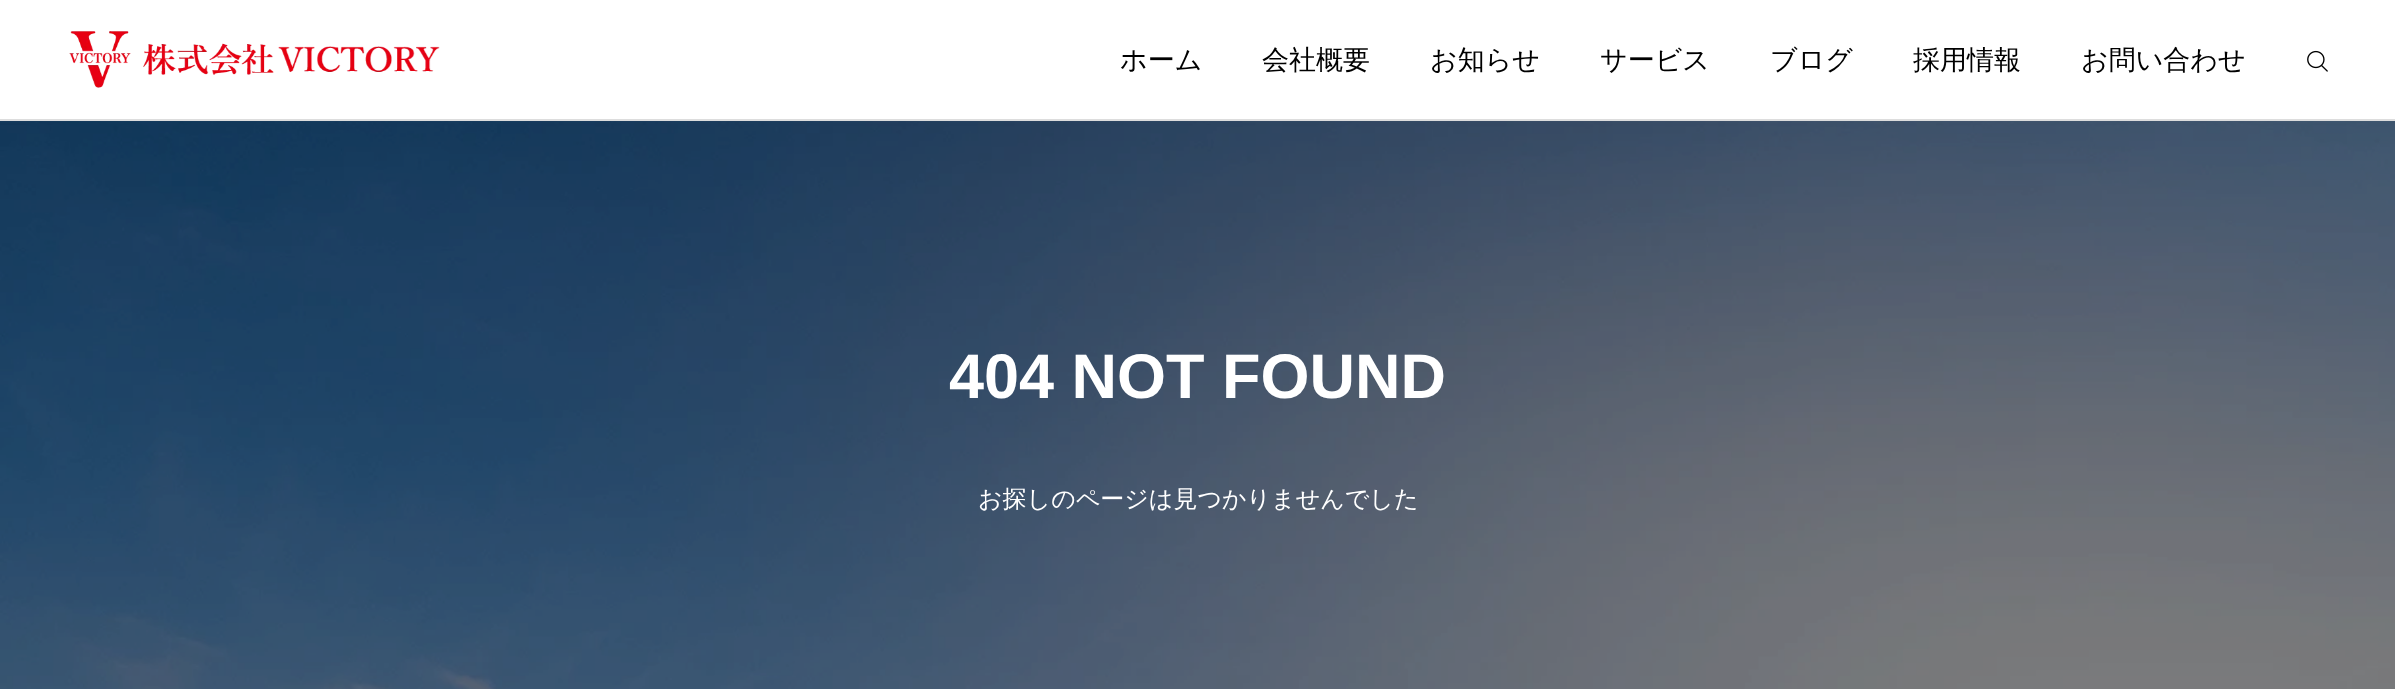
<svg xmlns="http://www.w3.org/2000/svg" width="2395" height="689">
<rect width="100%" height="100%" fill="#fff"/>
<rect y="119" width="2395" height="2" fill="#ddd"/>
<image x="69" y="31" width="371" height="57" href="media/1.png"/>
<text x="1120" y="69" style="font-family:WenQuanYi Zen Hei;font-size:27px;font-weight:500;fill:#000">ホーム</text>
<text x="1262" y="69" style="font-family:WenQuanYi Zen Hei;font-size:27px;font-weight:500;fill:#000">会社概要</text>
<text x="1430" y="69" style="font-family:WenQuanYi Zen Hei;font-size:27px;font-weight:500;fill:#000">お知らせ</text>
<text x="1600" y="69" style="font-family:WenQuanYi Zen Hei;font-size:27px;font-weight:500;fill:#000">サービス</text>
<text x="1770" y="69" style="font-family:WenQuanYi Zen Hei;font-size:27px;font-weight:500;fill:#000">ブログ</text>
<text x="1913" y="69" style="font-family:WenQuanYi Zen Hei;font-size:27px;font-weight:500;fill:#000">採用情報</text>
<text x="2081" y="69" style="font-family:WenQuanYi Zen Hei;font-size:27px;font-weight:500;fill:#000">お問い合わせ</text>
<image x="2307" y="50" width="21" height="22" href="media/2.png"/>
<image x="0" y="121" width="2395" height="568" href="media/3.png"/>
<text x="949" y="398" style="font-family:Liberation Sans;font-size:63px;font-weight:bold;fill:#fff">404 NOT FOUND</text>
<text x="978" y="507" style="font-family:WenQuanYi Zen Hei;font-size:24px;font-weight:500;fill:#fff">お探しのページは見つかりませんでした</text>
</svg>
